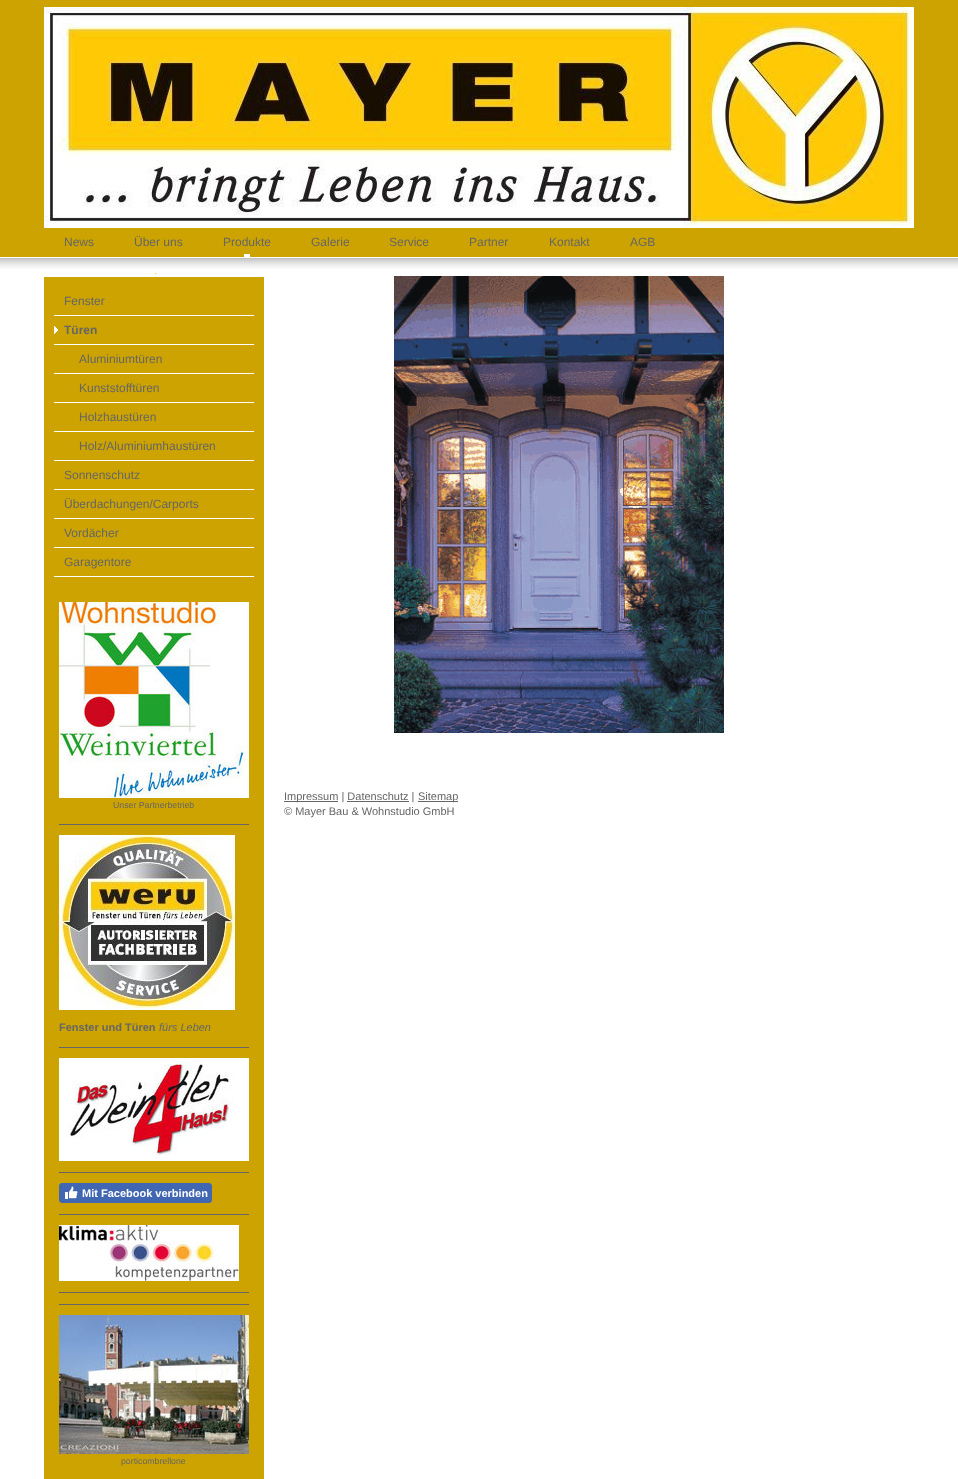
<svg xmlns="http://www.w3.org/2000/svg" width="958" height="1479">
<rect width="100%" height="100%" fill="#fff"/>
<rect width="958" height="257" fill="#cca300"/>
<rect x="44" y="227" width="870" height="1" fill="#fff"/>
<image x="44" y="7" width="870" height="220" href="media/1.png"/>
<text x="64" y="246" style="font-family:Liberation Sans;font-size:12px;fill:#666">News</text>
<text x="134" y="246" style="font-family:Liberation Sans;font-size:12px;fill:#666">Über uns</text>
<rect x="244" y="254" width="6" height="3" fill="#fff"/>
<text x="223" y="246" style="font-family:Liberation Sans;font-size:12px;fill:#666">Produkte</text>
<text x="311" y="246" style="font-family:Liberation Sans;font-size:12px;fill:#666">Galerie</text>
<text x="389" y="246" style="font-family:Liberation Sans;font-size:12px;fill:#666">Service</text>
<text x="469" y="246" style="font-family:Liberation Sans;font-size:12px;fill:#666">Partner</text>
<text x="549" y="246" style="font-family:Liberation Sans;font-size:12px;fill:#666">Kontakt</text>
<text x="630" y="246" style="font-family:Liberation Sans;font-size:12px;fill:#666">AGB</text>
<image x="0" y="258" width="958" height="11" href="media/2.png"/>
<image x="155" y="273" width="2" height="2" href="media/3.png"/>
<rect x="44" y="277" width="220" height="1202" fill="#cca300"/>
<rect x="54" y="315" width="200" height="1" fill="#fff"/>
<text x="64" y="305" style="font-family:Liberation Sans;font-size:12px;fill:#666">Fenster</text>
<image x="54" y="326" width="4" height="8" href="media/4.png"/>
<rect x="54" y="344" width="200" height="1" fill="#fff"/>
<text x="64" y="334" style="font-family:Liberation Sans;font-size:12px;font-weight:bold;fill:#666">Türen</text>
<rect x="54" y="373" width="200" height="1" fill="#fff"/>
<text x="79" y="363" style="font-family:Liberation Sans;font-size:12px;fill:#666">Aluminiumtüren</text>
<rect x="54" y="402" width="200" height="1" fill="#fff"/>
<text x="79" y="392" style="font-family:Liberation Sans;font-size:12px;fill:#666">Kunststofftüren</text>
<rect x="54" y="431" width="200" height="1" fill="#fff"/>
<text x="79" y="421" style="font-family:Liberation Sans;font-size:12px;fill:#666">Holzhaustüren</text>
<rect x="54" y="460" width="200" height="1" fill="#fff"/>
<text x="79" y="450" style="font-family:Liberation Sans;font-size:12px;fill:#666">Holz/Aluminiumhaustüren</text>
<rect x="54" y="489" width="200" height="1" fill="#fff"/>
<text x="64" y="479" style="font-family:Liberation Sans;font-size:12px;fill:#666">Sonnenschutz</text>
<rect x="54" y="518" width="200" height="1" fill="#fff"/>
<text x="64" y="508" style="font-family:Liberation Sans;font-size:12px;fill:#666">Überdachungen/Carports</text>
<rect x="54" y="547" width="200" height="1" fill="#fff"/>
<text x="64" y="537" style="font-family:Liberation Sans;font-size:12px;fill:#666">Vordächer</text>
<rect x="54" y="576" width="200" height="1" fill="#fff"/>
<text x="64" y="566" style="font-family:Liberation Sans;font-size:12px;fill:#666">Garagentore</text>
<image x="59" y="602" width="190" height="196" href="media/5.png"/>
<text x="113" y="808" style="font-family:Liberation Sans;font-size:8.75px;fill:#666">Unser Partnerbetrieb</text>
<rect x="59" y="824" width="190" height="1" fill="#666"/>
<image x="59" y="835" width="176" height="175" href="media/6.png"/>
<text x="59" y="1031" style="font-family:Liberation Sans;font-size:11px;font-weight:bold;fill:#666">Fenster und Türen</text>
<text x="159" y="1031" style="font-family:Liberation Sans;font-size:11px;font-style:italic;fill:#666">fürs Leben</text>
<rect x="59" y="1047" width="190" height="1" fill="#666"/>
<image x="59" y="1058" width="190" height="103" href="media/7.png"/>
<rect x="59" y="1172" width="190" height="1" fill="#666"/>
<rect x="59.5" y="1183.5" width="152" height="19" rx="2.5" fill="#4267b2" stroke="#4267b2"/>
<image x="65" y="1186" width="13" height="13" href="media/8.png"/>
<text x="82" y="1197" style="font-family:Liberation Sans;font-size:11px;font-weight:bold;fill:#fff">Mit Facebook verbinden</text>
<rect x="59" y="1214" width="190" height="1" fill="#666"/>
<image x="59" y="1225" width="180" height="56" href="media/9.png"/>
<rect x="59" y="1292" width="190" height="1" fill="#666"/>
<rect x="59" y="1304" width="190" height="1" fill="#666"/>
<image x="59" y="1315" width="190" height="139" href="media/10.png"/>
<text x="121" y="1464" style="font-family:Liberation Sans;font-size:8.75px;fill:#666">porticombrellone</text>
<image x="394" y="276" width="330" height="457" href="media/11.png"/>
<rect x="284" y="801" width="54" height="1" fill="#666"/>
<text x="284" y="800" style="font-family:Liberation Sans;font-size:11px;fill:#666">Impressum | Datenschutz |</text>
<rect x="418" y="801" width="40" height="1" fill="#666"/>
<text x="418" y="800" style="font-family:Liberation Sans;font-size:11px;fill:#666">Sitemap</text>
<rect x="347" y="801" width="62" height="1" fill="#666"/>
<text x="284" y="815" style="font-family:Liberation Sans;font-size:11px;fill:#666">© Mayer Bau &amp; Wohnstudio GmbH</text>
</svg>
